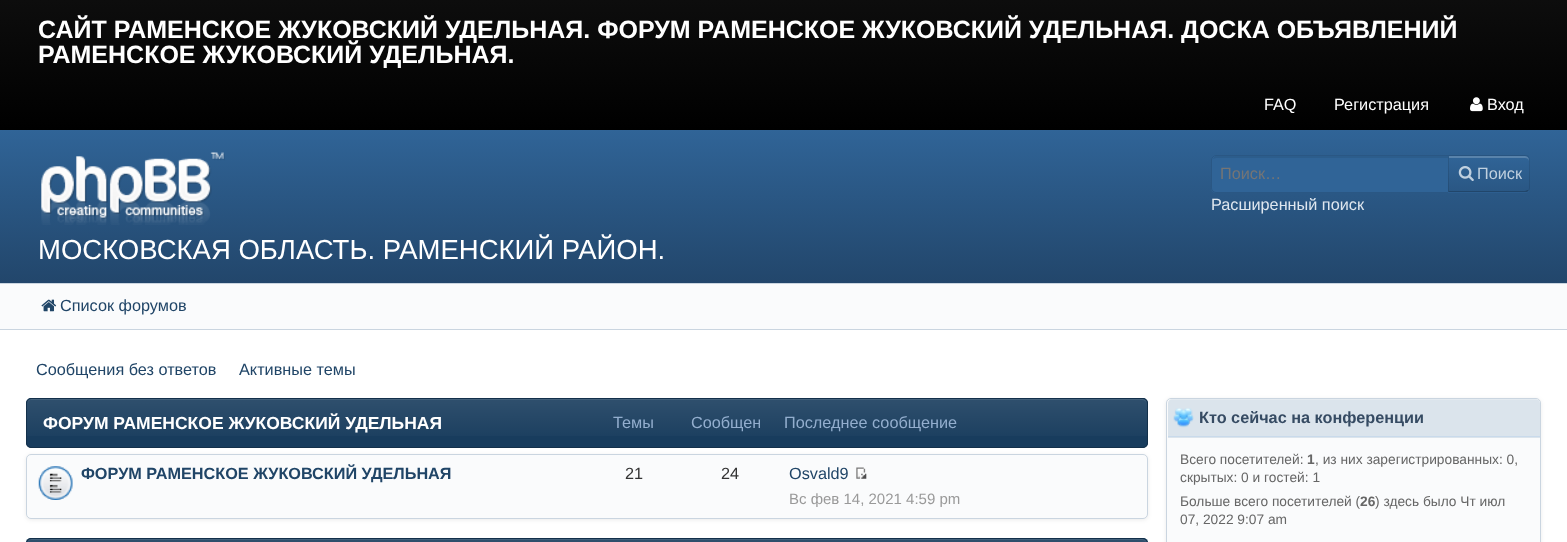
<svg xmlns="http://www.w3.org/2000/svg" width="1567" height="542">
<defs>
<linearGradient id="g1" gradientUnits="userSpaceOnUse" x1="784" y1="0" x2="784" y2="130"><stop offset="0" stop-color="#0d0d0d"/><stop offset="1" stop-color="#000"/></linearGradient>
<linearGradient id="g2" gradientUnits="userSpaceOnUse" x1="784" y1="130" x2="784" y2="283"><stop offset="0" stop-color="#306497"/><stop offset="1" stop-color="#22466b"/></linearGradient>
<clipPath id="clip1"><path d="M1448 155h77c3 0 5 2 5 5v28c0 3-2 5-5 5h-77z"/></clipPath>
<linearGradient id="g3" gradientUnits="userSpaceOnUse" x1="1489" y1="156" x2="1489" y2="191"><stop offset="0" stop-color="#306497"/><stop offset="1" stop-color="#2a5784"/></linearGradient>
<clipPath id="clip2"><rect x="26" y="398" width="1122" height="50" rx="5"/></clipPath>
<linearGradient id="g4" gradientUnits="userSpaceOnUse" x1="587" y1="399" x2="587" y2="446"><stop offset="0" stop-color="#fff" stop-opacity="0.1"/><stop offset="1" stop-color="#fff" stop-opacity="0"/></linearGradient>
<clipPath id="clip3"><rect x="691" y="410" width="69" height="25"/></clipPath>
<clipPath id="clip4"><rect x="26" y="538" width="1122" height="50" rx="5"/></clipPath>
<linearGradient id="g5" gradientUnits="userSpaceOnUse" x1="587" y1="539" x2="587" y2="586"><stop offset="0" stop-color="#fff" stop-opacity="0.1"/><stop offset="1" stop-color="#fff" stop-opacity="0"/></linearGradient>
<clipPath id="clip5"><rect x="1168" y="399" width="372" height="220" rx="4"/></clipPath>
</defs>
<rect width="100%" height="100%" fill="#fff"/>
<rect width="1567" height="130" fill="url(#g1)"/>
<text x="38" y="38" style="font-family:Liberation Sans;font-size:25px;font-weight:bold;fill:#fff">САЙТ РАМЕНСКОЕ ЖУКОВСКИЙ УДЕЛЬНАЯ. ФОРУМ РАМЕНСКОЕ ЖУКОВСКИЙ УДЕЛЬНАЯ. ДОСКА ОБЪЯВЛЕНИЙ</text>
<text x="38" y="63" style="font-family:Liberation Sans;font-size:25px;font-weight:bold;fill:#fff">РАМЕНСКОЕ ЖУКОВСКИЙ УДЕЛЬНАЯ.</text>
<text x="1264" y="110" style="font-family:Liberation Sans;font-size:16.25px;fill:#fff">FAQ</text>
<text x="1334" y="110" style="font-family:Liberation Sans;font-size:16.25px;fill:#fff">Регистрация</text>
<image x="1470" y="97" width="13" height="15" href="media/1.png"/>
<text x="1487" y="110" style="font-family:Liberation Sans;font-size:16.25px;fill:#fff">Вход</text>
<rect y="130" width="1567" height="153" fill="url(#g2)"/>
<path d="M1216 155h233v38h-233c-3 0-5-2-5-5v-28c0-3 2-5 5-5z" fill="#306497"/>
<path d="M1216 158h232v-2h-231c-2 0-3 1-4 3z" fill="#2c5d8c"/>
<path d="M1216 155.5h232.5v37h-232.5c-2.5 0-4.5-2-4.5-4.5v-28c0-2.5 2-4.5 4.5-4.5z" fill="none" stroke="#2a5784"/>
<text x="1220" y="179" style="font-family:Liberation Sans;font-size:16.25px;fill:#757575">Поиск…</text>
<path d="M1448 155h77c3 0 5 2 5 5v28c0 3-2 5-5 5h-77z" fill="#2d5e8f"/>
<g clip-path="url(#clip1)">
<rect x="1448" y="156" width="82" height="35" fill="url(#g3)"/>
</g>
<path d="M1449 158h76c2 0 4 1 4 3v-1c0-2-2-4-4-4h-76z" fill="#5983ab"/>
<path d="M1448 155l1 1h76l3 1l1-1c-1 0-3-1-4-1z" fill="#0000001a"/>
<path d="M1530 188v-28c0-1.5-.5-3-1.5-3.5l-.5 .5c.5 1 1 2 1 3v28c0 1-.5 2-1 2l.5 1c1-1 1.5-2 1.5-3z" fill="#0000001a"/>
<path d="M1528 191c0 1-2 1-3 1h-77l1-1h76l3-1z" fill="#00000040"/>
<path d="M1448 155.5v36.5l1-1v-34.5z" fill="#0000001a"/>
<image x="1458" y="166" width="16" height="15" href="media/2.png"/>
<text x="1477" y="179" style="font-family:Liberation Sans;font-size:16.25px;fill:#c0d0df">Поиск</text>
<text x="1211" y="210" style="font-family:Liberation Sans;font-size:16.25px;fill:#dfe7ef">Расширенный поиск</text>
<image x="41" y="152" width="184" height="73" href="media/3.png"/>
<text x="38" y="259" style="font-family:Liberation Sans;font-size:27.5px;fill:#fff">МОСКОВСКАЯ ОБЛАСТЬ. РАМЕНСКИЙ РАЙОН.</text>
<rect y="284" width="1567" height="45" fill="#fafbfc"/>
<rect y="283" width="1567" height="1" fill="#cad5e0"/>
<rect y="329" width="1567" height="1" fill="#cad5e0"/>
<image x="41" y="299" width="16" height="13" href="media/4.png"/>
<text x="60" y="311" style="font-family:Liberation Sans;font-size:16.25px;fill:#204567">Список форумов</text>
<text x="36" y="375" style="font-family:Liberation Sans;font-size:16.25px;fill:#204567">Сообщения без ответов</text>
<text x="239" y="375" style="font-family:Liberation Sans;font-size:16.25px;fill:#204567">Активные темы</text>
<rect x="26" y="398" width="1122" height="50" rx="5" fill="#183c5d"/>
<g clip-path="url(#clip2)">
<rect x="26" y="399" width="1122" height="37" fill="url(#g4)"/>
</g>
<path d="M31 400h1111c3 0 4 2 4 4c0-3-1-5-4-5h-1110c-3 0-4 2-4 5c0-2 1-4 3-4z" fill="#43617b"/>
<rect x="26.5" y="398.5" width="1121" height="49" rx="4.5" fill="none" stroke="#13304a"/>
<text x="43" y="429" style="font-family:Liberation Sans;font-size:17.5px;font-weight:bold;fill:#fff">ФОРУМ РАМЕНСКОЕ ЖУКОВСКИЙ УДЕЛЬНАЯ</text>
<text x="613" y="428" style="font-family:Liberation Sans;font-size:16.25px;fill:#93aece">Темы</text>
<g clip-path="url(#clip3)">
<text x="691" y="428" style="font-family:Liberation Sans;font-size:16.25px;fill:#93aece">Сообщен</text>
</g>
<text x="784" y="428" style="font-family:Liberation Sans;font-size:16.25px;fill:#93aece">Последнее сообщение</text>
<rect x="26" y="455" width="1122" height="65" rx="5" fill="#00000014" filter="blur(2px)"/>
<rect x="26.5" y="454.5" width="1121" height="64" rx="4.5" fill="#fafbfc" stroke="#cad5e0"/>
<image x="38" y="466" width="35" height="34" href="media/5.png"/>
<text x="81" y="479" style="font-family:Liberation Sans;font-size:16.25px;font-weight:bold;fill:#204567">ФОРУМ РАМЕНСКОЕ ЖУКОВСКИЙ УДЕЛЬНАЯ</text>
<text x="625" y="479" style="font-family:Liberation Sans;font-size:16.25px;fill:#333">21</text>
<text x="721" y="479" style="font-family:Liberation Sans;font-size:16.25px;fill:#333">24</text>
<text x="789" y="479" style="font-family:Liberation Sans;font-size:16.25px;fill:#204567">Osvald9</text>
<image x="856" y="467" width="11" height="12" href="media/6.png"/>
<text x="789" y="504" style="font-family:Liberation Sans;font-size:15px;fill:#999">Вс фев 14, 2021 4:59 pm</text>
<rect x="26" y="538" width="1122" height="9" rx="5" fill="#183c5d"/>
<g clip-path="url(#clip4)">
<rect x="26" y="539" width="1122" height="3" fill="url(#g5)"/>
</g>
<path d="M31 540h1111c3 0 4 2 4 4c0-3-1-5-4-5h-1110c-3 0-4 2-4 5c0-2 1-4 3-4z" fill="#43617b"/>
<rect x="26.5" y="538.5" width="1121" height="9" rx="4.5" fill="none" stroke="#13304a"/>
<rect x="1166" y="399" width="375" height="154" rx="5" fill="#00000014" filter="blur(2px)"/>
<rect x="1166.5" y="398.5" width="374" height="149" rx="4.5" fill="#fafbfc" stroke="#cad5e0"/>
<path d="M1172 399h364c2 0 4 2 4 4v35h-372v-35c0-2 2-4 4-4z" fill="#dbe4ec"/>
<image x="1173" y="408" width="21" height="20" href="media/7.png"/>
<g clip-path="url(#clip5)">
<rect x="1168" y="399" width="372" height="1" fill="#ffffff38"/>
</g>
<rect x="1168" y="436" width="372" height="1" fill="#c9daeb"/>
<text x="1199" y="423" style="font-family:Liberation Sans;font-size:16.25px;font-weight:bold;fill:#364b63">Кто сейчас на конференции</text>
<text x="1180" y="464" style="font-family:Liberation Sans;font-size:13.75px;fill:#666">Всего посетителей:</text>
<text x="1307" y="464" style="font-family:Liberation Sans;font-size:13.75px;font-weight:bold;fill:#666">1</text>
<text x="1315" y="464" style="font-family:Liberation Sans;font-size:13.75px;fill:#666">, из них зарегистрированных: 0,</text>
<text x="1180" y="482" style="font-family:Liberation Sans;font-size:13.75px;fill:#666">скрытых: 0 и гостей: 1</text>
<text x="1180" y="506" style="font-family:Liberation Sans;font-size:13.75px;fill:#666">Больше всего посетителей (</text>
<text x="1360" y="506" style="font-family:Liberation Sans;font-size:13.75px;font-weight:bold;fill:#666">26</text>
<text x="1375" y="506" style="font-family:Liberation Sans;font-size:13.75px;fill:#666">) здесь было Чт июл</text>
<text x="1180" y="524" style="font-family:Liberation Sans;font-size:13.75px;fill:#666">07, 2022 9:07 am</text>
</svg>
